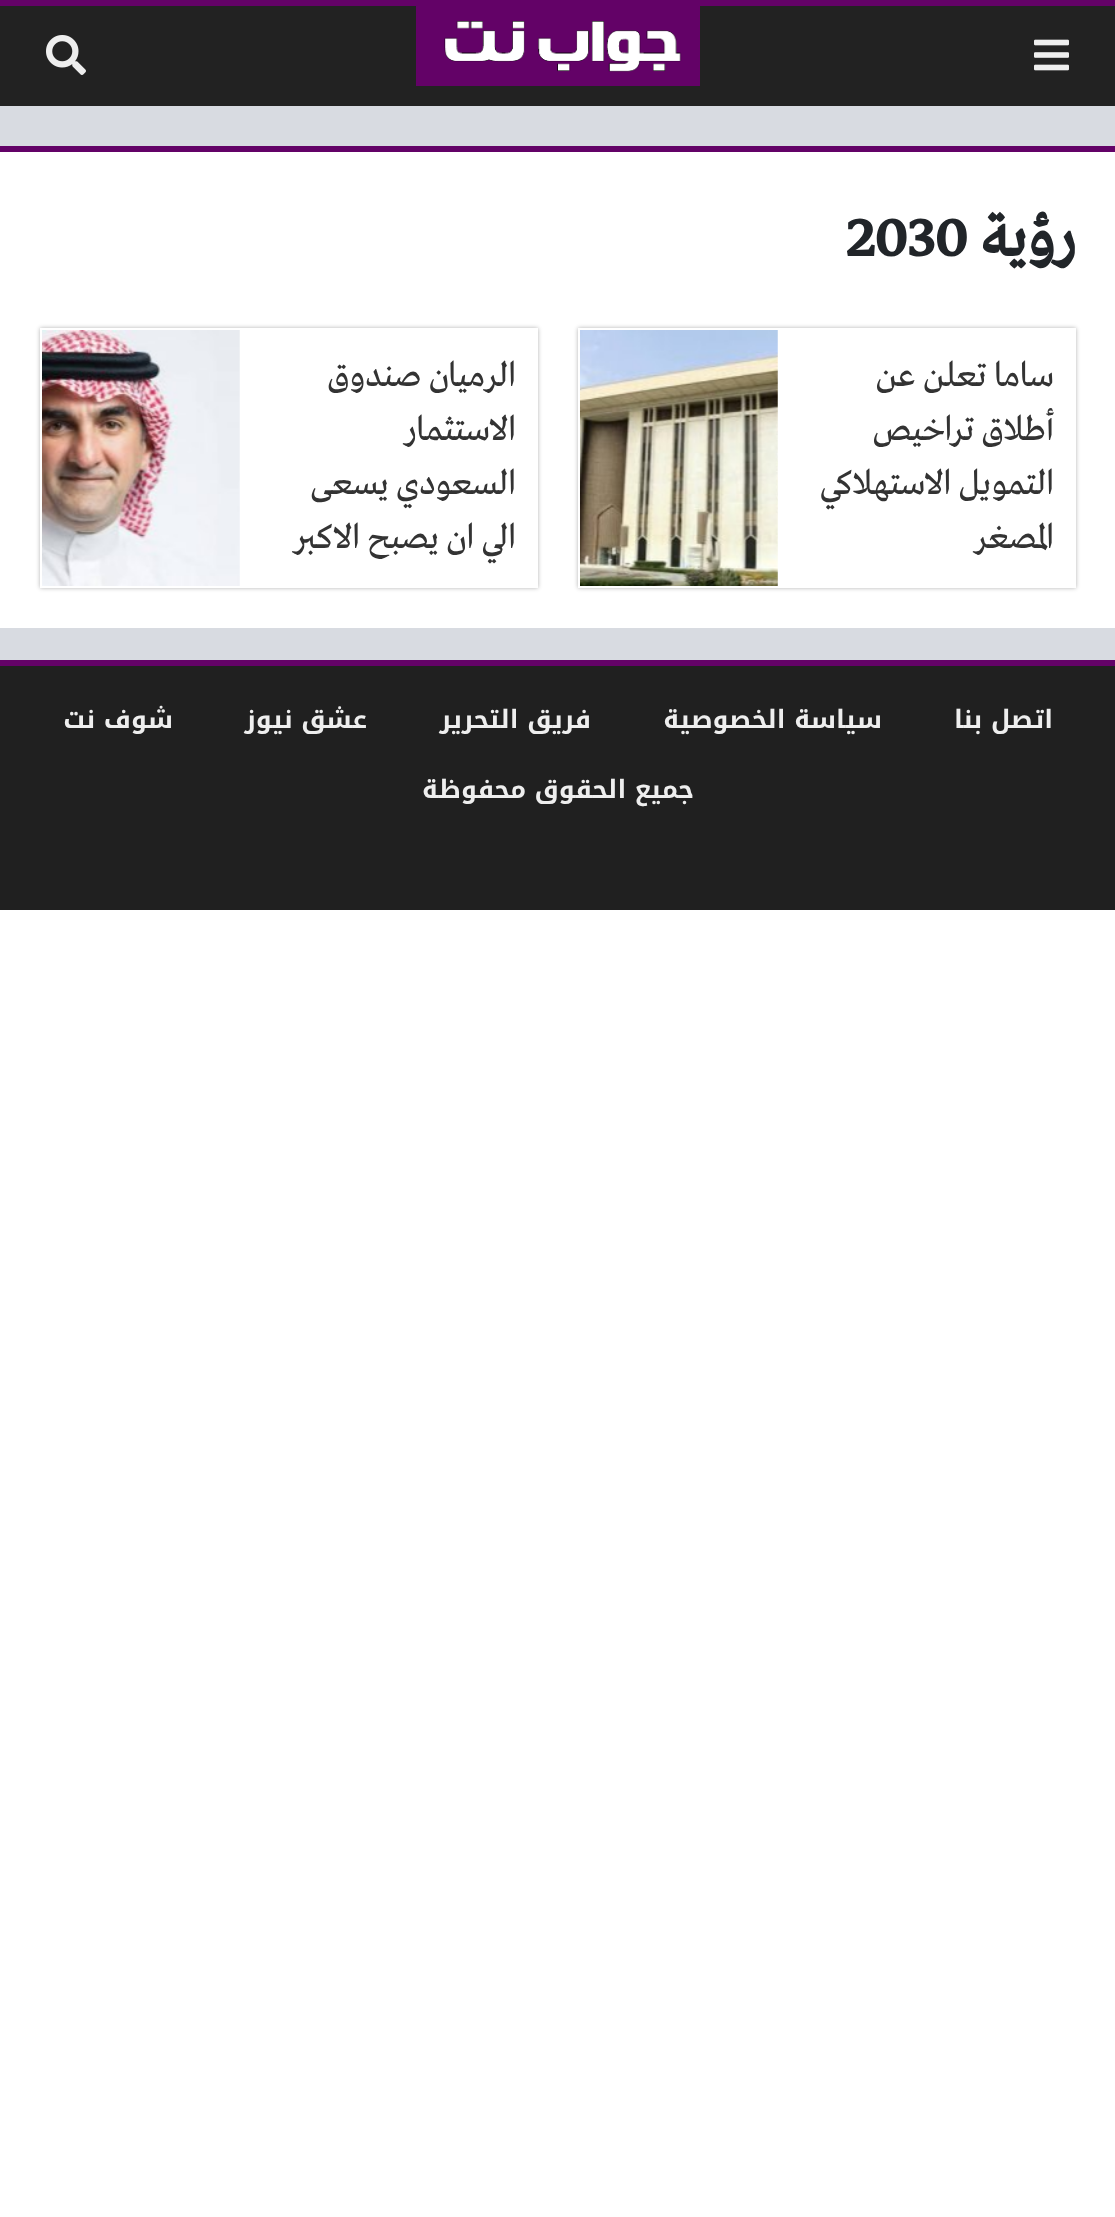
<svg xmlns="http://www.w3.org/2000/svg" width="1115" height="2217">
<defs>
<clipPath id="clip1"><path d="M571 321h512v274h-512zm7 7h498v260h-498z" clip-rule="evenodd"/></clipPath>
<clipPath id="clip2"><path d="M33 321h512v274h-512zm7 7h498v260h-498z" clip-rule="evenodd"/></clipPath>
</defs>
<rect width="100%" height="100%" fill="#fff"/>
<rect y="106" width="1115" height="554" fill="#d8dbe1"/>
<rect y="6" width="1115" height="100" fill="#222"/>
<rect width="1115" height="6" fill="#630267"/>
<image x="1034" y="39" width="35" height="32" href="media/1.png"/>
<rect x="416" y="6" width="284" height="80" fill="#630267"/>
<image x="444" y="21" width="238" height="51" href="media/2.png"/>
<image x="46" y="35" width="40" height="40" href="media/3.png"/>
<rect y="152" width="1115" height="476" fill="#fff"/>
<rect y="146" width="1115" height="6" fill="#630267"/>
<text x="1076" y="256" style="font-family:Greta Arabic;font-size:64px;font-weight:bold;direction:rtl;fill:#212529">رؤية</text>
<text x="846" y="256" style="font-family:Greta Arabic;font-size:64px;font-weight:bold;fill:#212529">2030</text>
<g clip-path="url(#clip1)">
<rect x="578" y="328" width="498" height="260" fill="#0000004d" filter="blur(2px)"/>
</g>
<text x="1054" y="386" style="font-family:Greta Arabic;font-size:36px;direction:rtl;fill:#333">ساما تعلن عن</text>
<text x="1054" y="440" style="font-family:Greta Arabic;font-size:36px;direction:rtl;fill:#333">أطلاق تراخيص</text>
<text x="1054" y="494" style="font-family:Greta Arabic;font-size:36px;direction:rtl;fill:#333">التمويل الاستهلاكي</text>
<text x="1054" y="548" style="font-family:Greta Arabic;font-size:36px;direction:rtl;fill:#333">المصغر</text>
<image x="580" y="330" width="198" height="256" href="media/4.png"/>
<g clip-path="url(#clip2)">
<rect x="40" y="328" width="498" height="260" fill="#0000004d" filter="blur(2px)"/>
</g>
<text x="516" y="386" style="font-family:Greta Arabic;font-size:36px;direction:rtl;fill:#333">الرميان صندوق</text>
<text x="516" y="440" style="font-family:Greta Arabic;font-size:36px;direction:rtl;fill:#333">الاستثمار</text>
<text x="516" y="494" style="font-family:Greta Arabic;font-size:36px;direction:rtl;fill:#333">السعودي يسعى</text>
<text x="516" y="548" style="font-family:Greta Arabic;font-size:36px;direction:rtl;fill:#333">الي ان يصبح الاكبر</text>
<image x="42" y="330" width="198" height="256" href="media/5.png"/>
<rect y="666" width="1115" height="244" fill="#202020"/>
<rect y="660" width="1115" height="6" fill="#630267"/>
<text x="1053" y="728" style="font-family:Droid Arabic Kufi;font-size:25.25px;font-weight:bold;direction:rtl;fill:#eee">اتصل بنا</text>
<text x="882" y="728" style="font-family:Droid Arabic Kufi;font-size:25.25px;font-weight:bold;direction:rtl;fill:#eee">سياسة الخصوصية</text>
<text x="591" y="728" style="font-family:Droid Arabic Kufi;font-size:25.25px;font-weight:bold;direction:rtl;fill:#eee">فريق التحرير</text>
<text x="367" y="728" style="font-family:Droid Arabic Kufi;font-size:25.25px;font-weight:bold;direction:rtl;fill:#eee">عشق نيوز</text>
<text x="173" y="728" style="font-family:Droid Arabic Kufi;font-size:25.25px;font-weight:bold;direction:rtl;fill:#eee">شوف نت</text>
<text x="694" y="798" style="font-family:Droid Arabic Kufi;font-size:25.25px;font-weight:bold;direction:rtl;fill:#eee">جميع الحقوق محفوظة</text>
</svg>
